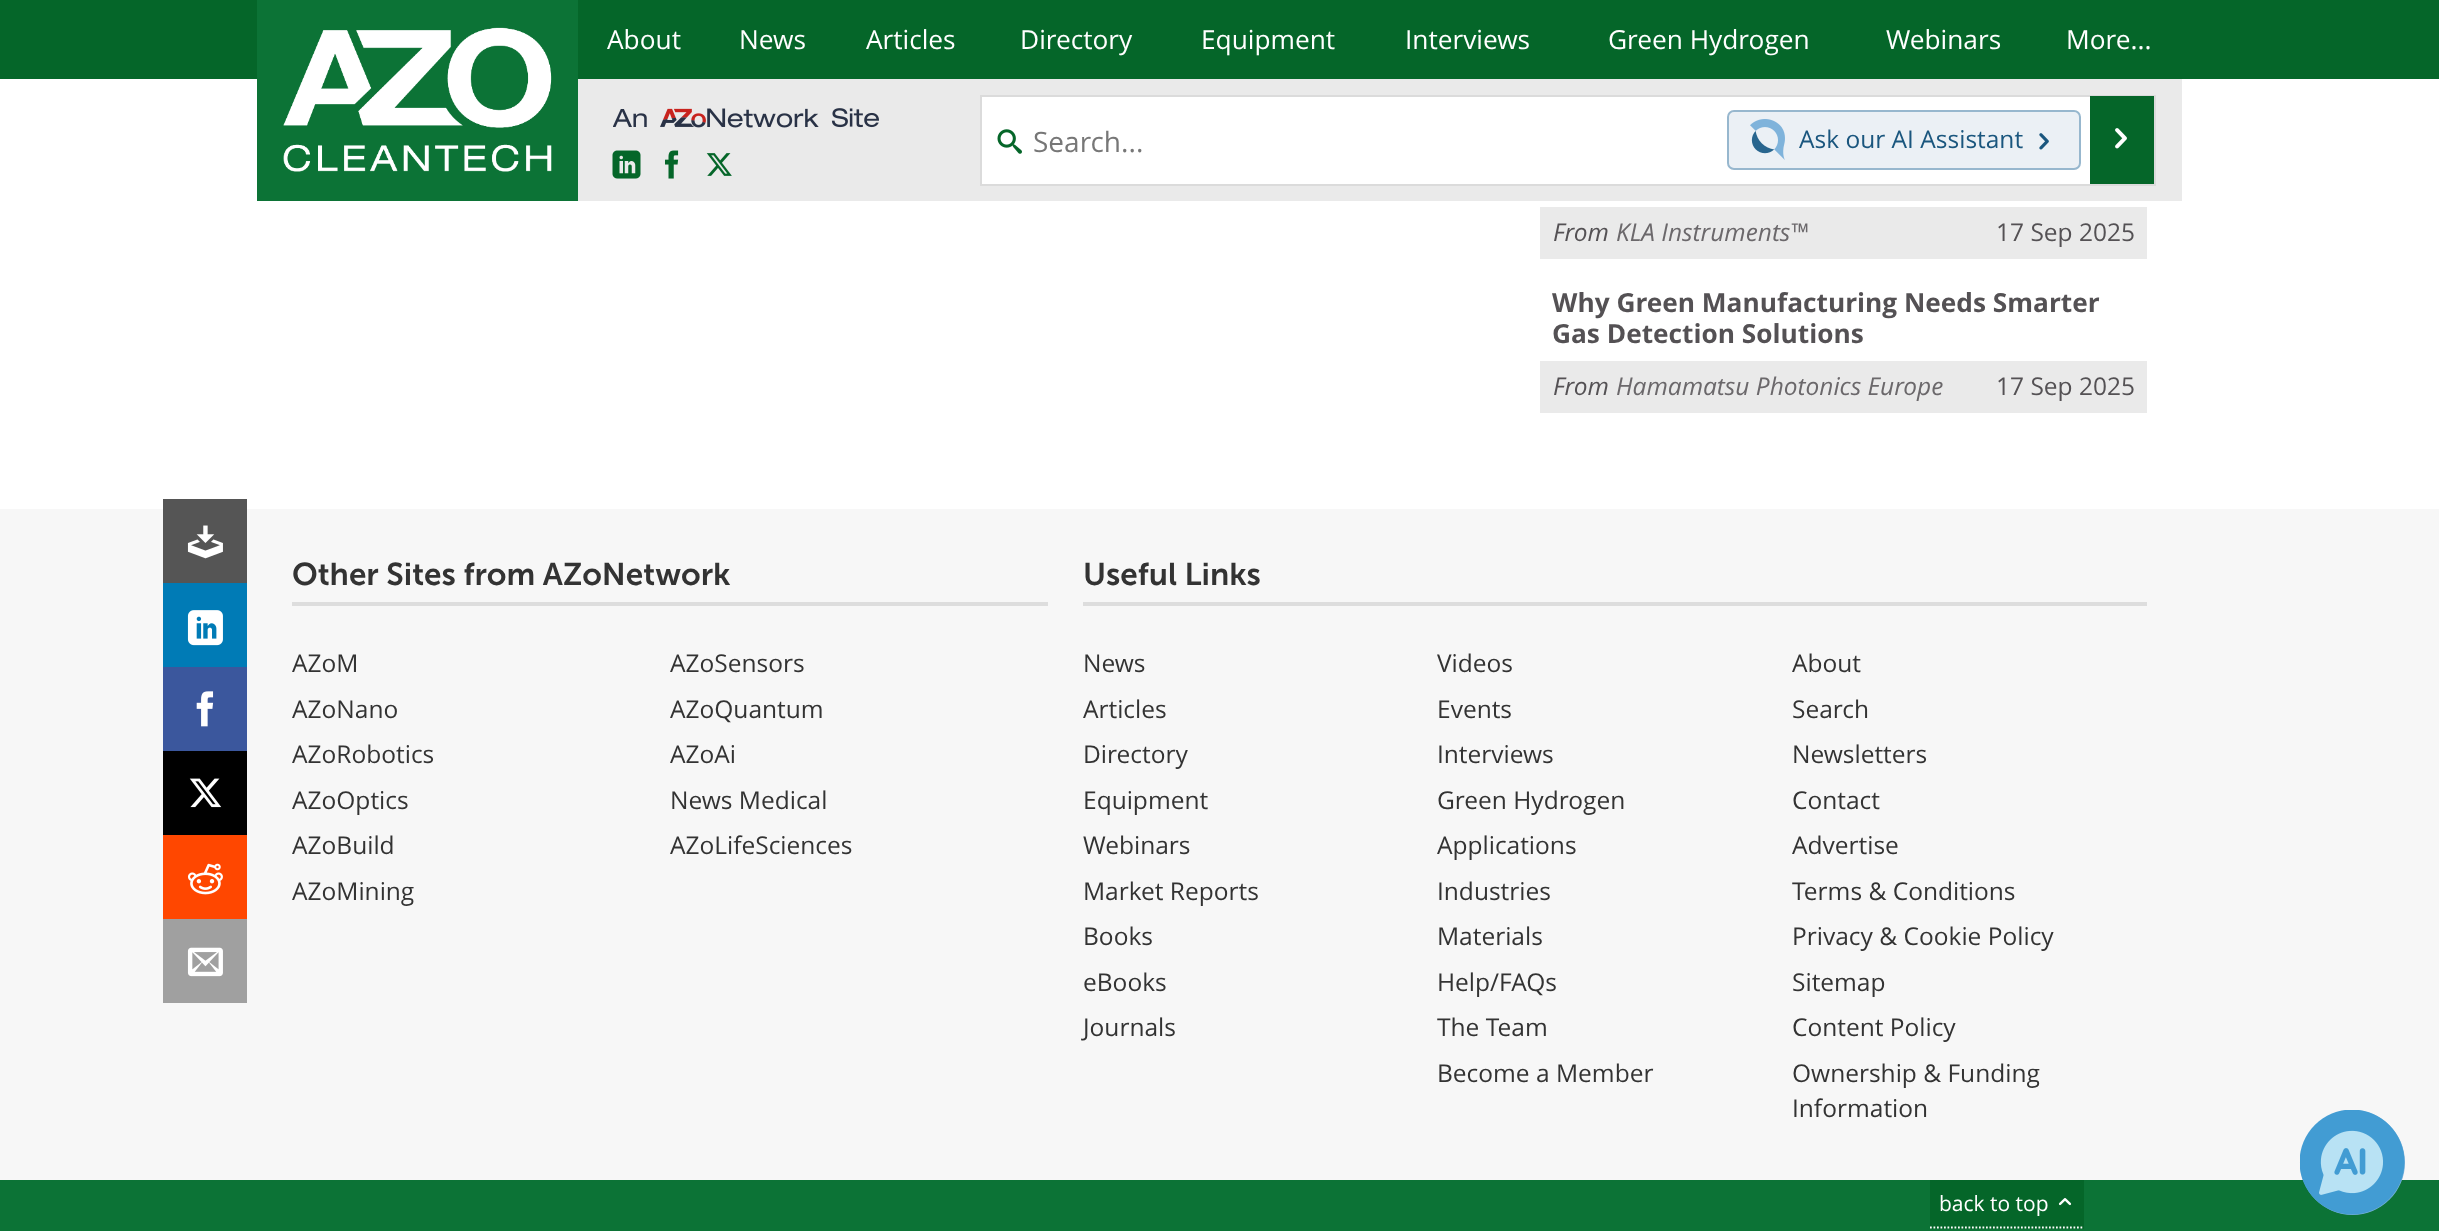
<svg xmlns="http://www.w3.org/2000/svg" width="2439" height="1231">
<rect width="100%" height="100%" fill="#fff"/>
<rect width="2439" height="79" fill="#056629"/>
<rect x="578" y="79" width="1604" height="122" fill="#eaeaea"/>
<rect x="257" width="321" height="201" fill="#0c7336"/>
<image x="283" y="27" width="269" height="145" href="media/1.png"/>
<text x="607" y="49" style="font-family:Open Sans;font-size:26.25px;fill:#fff">About</text>
<text x="739" y="49" style="font-family:Open Sans;font-size:26.25px;fill:#fff">News</text>
<text x="866" y="49" style="font-family:Open Sans;font-size:26.25px;fill:#fff">Articles</text>
<text x="1020" y="49" style="font-family:Open Sans;font-size:26.25px;fill:#fff">Directory</text>
<text x="1201" y="49" style="font-family:Open Sans;font-size:26.25px;fill:#fff">Equipment</text>
<text x="1405" y="49" style="font-family:Open Sans;font-size:26.25px;fill:#fff">Interviews</text>
<text x="1608" y="49" style="font-family:Open Sans;font-size:26.25px;fill:#fff">Green Hydrogen</text>
<text x="1886" y="49" style="font-family:Open Sans;font-size:26.25px;fill:#fff">Webinars</text>
<text x="2066" y="49" style="font-family:Open Sans;font-size:26.25px;fill:#fff">More...</text>
<image x="613" y="108" width="266" height="20" href="media/2.png"/>
<image x="612" y="150" width="29" height="29" href="media/3.png"/>
<image x="665" y="150" width="14" height="29" href="media/4.png"/>
<image x="706" y="153" width="26" height="23" href="media/5.png"/>
<rect x="982" y="97" width="1108" height="87" fill="#fff"/>
<rect x="981" y="96" width="1174" height="89" fill="none" stroke="#dbdbdb" stroke-width="2"/>
<image x="997" y="129" width="25" height="25" href="media/6.png"/>
<text x="1033" y="152" style="font-family:Open Sans;font-size:28px;fill:#777">Search...</text>
<rect x="1728" y="111" width="352" height="58" rx="6" fill="#ebf0f5" stroke="#97b7ce" stroke-width="2"/>
<image x="1750" y="119" width="35" height="41" href="media/7.png"/>
<text x="1799" y="148" style="font-family:Open Sans;font-size:24.5px;fill:#1a567e">Ask our AI Assistant</text>
<image x="2039" y="133" width="10" height="17" href="media/8.png"/>
<rect x="2090" y="96" width="64" height="88" fill="#056629"/>
<image x="2115" y="128" width="12" height="21" href="media/9.png"/>
<rect x="1540" y="207" width="607" height="52" fill="#eaeaea"/>
<text x="1553" y="241" style="font-family:Open Sans;font-size:24.5px;font-style:italic;fill:#545154">From</text>
<text x="1616" y="241" style="font-family:Open Sans;font-size:24.5px;font-style:italic;fill:#6b686b">KLA Instruments™</text>
<text x="1996" y="241" style="font-family:Open Sans;font-size:24.5px;fill:#545154">17 Sep 2025</text>
<text x="1552" y="312" style="font-family:Open Sans;font-size:26.25px;font-weight:bold;fill:#545154">Why Green Manufacturing Needs Smarter</text>
<text x="1552" y="343" style="font-family:Open Sans;font-size:26.25px;font-weight:bold;fill:#545154">Gas Detection Solutions</text>
<rect x="1540" y="361" width="607" height="52" fill="#eaeaea"/>
<text x="1553" y="395" style="font-family:Open Sans;font-size:24.5px;font-style:italic;fill:#545154">From</text>
<text x="1616" y="395" style="font-family:Open Sans;font-size:24.5px;font-style:italic;fill:#6b686b">Hamamatsu Photonics Europe</text>
<text x="1996" y="395" style="font-family:Open Sans;font-size:24.5px;fill:#545154">17 Sep 2025</text>
<rect y="509" width="2439" height="671" fill="#f7f7f7"/>
<rect x="163" y="499" width="84" height="84" fill="#555"/>
<image x="187" y="525" width="36" height="34" href="media/10.png"/>
<rect x="163" y="583" width="84" height="84" fill="#007bb6"/>
<image x="187" y="610" width="36" height="36" href="media/11.png"/>
<rect x="163" y="667" width="84" height="84" fill="#3b579d"/>
<image x="196" y="691" width="18" height="36" href="media/12.png"/>
<rect x="163" y="751" width="84" height="84" fill="#000"/>
<image x="189" y="778" width="33" height="30" href="media/13.png"/>
<rect x="163" y="835" width="84" height="84" fill="#ff4700"/>
<image x="187" y="863" width="36" height="32" href="media/14.png"/>
<rect x="163" y="919" width="84" height="84" fill="#a0a0a0"/>
<image x="187" y="947" width="36" height="30" href="media/15.png"/>
<rect y="1180" width="2439" height="51" fill="#0c7336"/>
<circle cx="2352.5" cy="1162.5" r="52.5" fill="#7fb3db"/>
<image x="2300" y="1110" width="105" height="105" href="media/16.png"/>
<rect x="292" y="602" width="756" height="4" fill="#ddd"/>
<text x="292" y="585" style="font-family:'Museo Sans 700';font-size:31.5px;font-weight:600;fill:#333">Other Sites from AZoNetwork</text>
<text x="292" y="672" style="font-family:Open Sans;font-size:24.5px;fill:#333">AZoM</text>
<text x="292" y="718" style="font-family:Open Sans;font-size:24.5px;fill:#333">AZoNano</text>
<text x="292" y="763" style="font-family:Open Sans;font-size:24.5px;fill:#333">AZoRobotics</text>
<text x="292" y="809" style="font-family:Open Sans;font-size:24.5px;fill:#333">AZoOptics</text>
<text x="292" y="854" style="font-family:Open Sans;font-size:24.5px;fill:#333">AZoBuild</text>
<text x="292" y="900" style="font-family:Open Sans;font-size:24.5px;fill:#333">AZoMining</text>
<text x="670" y="672" style="font-family:Open Sans;font-size:24.5px;fill:#333">AZoSensors</text>
<text x="670" y="718" style="font-family:Open Sans;font-size:24.5px;fill:#333">AZoQuantum</text>
<text x="670" y="763" style="font-family:Open Sans;font-size:24.5px;fill:#333">AZoAi</text>
<text x="670" y="809" style="font-family:Open Sans;font-size:24.5px;fill:#333">News Medical</text>
<text x="670" y="854" style="font-family:Open Sans;font-size:24.5px;fill:#333">AZoLifeSciences</text>
<rect x="1083" y="602" width="1064" height="4" fill="#ddd"/>
<text x="1083" y="585" style="font-family:'Museo Sans 700';font-size:31.5px;font-weight:600;fill:#333">Useful Links</text>
<text x="1083" y="672" style="font-family:Open Sans;font-size:24.5px;fill:#333">News</text>
<text x="1083" y="718" style="font-family:Open Sans;font-size:24.5px;fill:#333">Articles</text>
<text x="1083" y="763" style="font-family:Open Sans;font-size:24.5px;fill:#333">Directory</text>
<text x="1083" y="809" style="font-family:Open Sans;font-size:24.5px;fill:#333">Equipment</text>
<text x="1083" y="854" style="font-family:Open Sans;font-size:24.5px;fill:#333">Webinars</text>
<text x="1083" y="900" style="font-family:Open Sans;font-size:24.5px;fill:#333">Market Reports</text>
<text x="1083" y="945" style="font-family:Open Sans;font-size:24.5px;fill:#333">Books</text>
<text x="1083" y="991" style="font-family:Open Sans;font-size:24.5px;fill:#333">eBooks</text>
<text x="1083" y="1036" style="font-family:Open Sans;font-size:24.5px;fill:#333">Journals</text>
<text x="1437" y="672" style="font-family:Open Sans;font-size:24.5px;fill:#333">Videos</text>
<text x="1437" y="718" style="font-family:Open Sans;font-size:24.5px;fill:#333">Events</text>
<text x="1437" y="763" style="font-family:Open Sans;font-size:24.5px;fill:#333">Interviews</text>
<text x="1437" y="809" style="font-family:Open Sans;font-size:24.5px;fill:#333">Green Hydrogen</text>
<text x="1437" y="854" style="font-family:Open Sans;font-size:24.5px;fill:#333">Applications</text>
<text x="1437" y="900" style="font-family:Open Sans;font-size:24.5px;fill:#333">Industries</text>
<text x="1437" y="945" style="font-family:Open Sans;font-size:24.5px;fill:#333">Materials</text>
<text x="1437" y="991" style="font-family:Open Sans;font-size:24.5px;fill:#333">Help/FAQs</text>
<text x="1437" y="1036" style="font-family:Open Sans;font-size:24.5px;fill:#333">The Team</text>
<text x="1437" y="1082" style="font-family:Open Sans;font-size:24.5px;fill:#333">Become a Member</text>
<text x="1792" y="672" style="font-family:Open Sans;font-size:24.5px;fill:#333">About</text>
<text x="1792" y="718" style="font-family:Open Sans;font-size:24.5px;fill:#333">Search</text>
<text x="1792" y="763" style="font-family:Open Sans;font-size:24.5px;fill:#333">Newsletters</text>
<text x="1792" y="809" style="font-family:Open Sans;font-size:24.5px;fill:#333">Contact</text>
<text x="1792" y="854" style="font-family:Open Sans;font-size:24.5px;fill:#333">Advertise</text>
<text x="1792" y="900" style="font-family:Open Sans;font-size:24.5px;fill:#333">Terms &amp; Conditions</text>
<text x="1792" y="945" style="font-family:Open Sans;font-size:24.5px;fill:#333">Privacy &amp; Cookie Policy</text>
<text x="1792" y="991" style="font-family:Open Sans;font-size:24.5px;fill:#333">Sitemap</text>
<text x="1792" y="1036" style="font-family:Open Sans;font-size:24.5px;fill:#333">Content Policy</text>
<text x="1792" y="1082" style="font-family:Open Sans;font-size:24.5px;fill:#333">Ownership &amp; Funding</text>
<text x="1792" y="1117" style="font-family:Open Sans;font-size:24.5px;fill:#333">Information</text>
<rect x="1930" y="1180" width="154" height="49" fill="#056629"/>
<path d="M1930 1227.5h154" fill="none" stroke="#fff" stroke-width="1.8" stroke-dasharray="1.75 1.75"/>
<text x="1939" y="1211" style="font-family:Open Sans;font-size:21px;fill:#fff">back to top</text>
<image x="2058" y="1198" width="14" height="8" href="media/17.png"/>
</svg>
